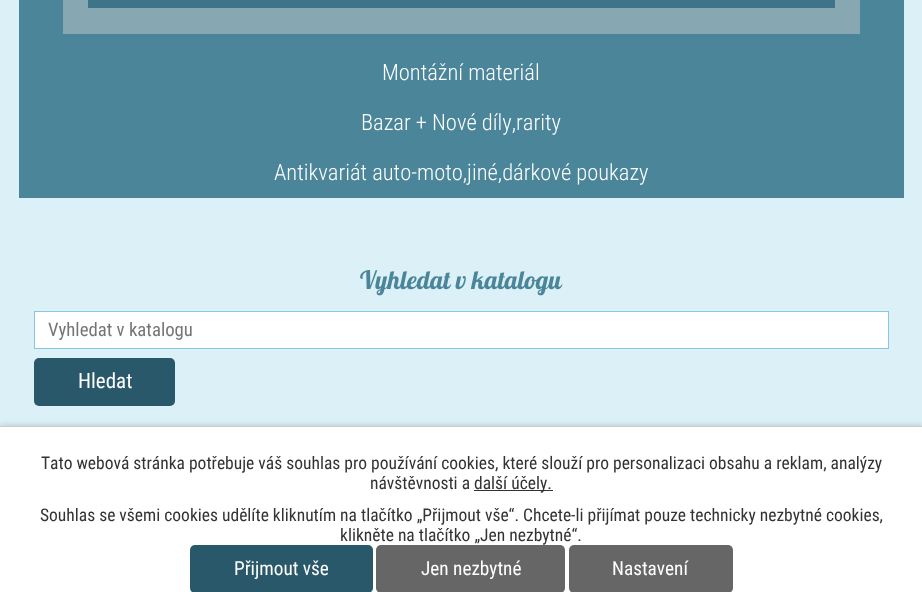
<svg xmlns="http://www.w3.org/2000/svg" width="922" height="592">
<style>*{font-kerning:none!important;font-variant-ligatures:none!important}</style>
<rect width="100%" height="100%" fill="#dcf0f7"/>
<rect x="19" width="885" height="198" fill="#4a859a"/>
<rect x="63" width="797" height="34" fill="#87a7b3"/>
<rect x="88" width="747" height="8" fill="#3e7487"/>
<text x="382" y="80" style="font-family:Roboto Condensed;font-size:22.5px;font-weight:300;fill:#fff">Montážní materiál</text>
<text x="361" y="130" style="font-family:Roboto Condensed;font-size:22.5px;font-weight:300;fill:#fff">Bazar + Nové díly,rarity</text>
<text x="274" y="180" style="font-family:Roboto Condensed;font-size:22.5px;font-weight:300;fill:#fff">Antikvariát auto-moto,jiné,dárkové poukazy</text>
<text x="360" y="289" style="font-family:Lobster;font-size:25.25px;fill:#4a859a">Vyhledat v katalogu</text>
<rect x="34.5" y="311.5" width="854" height="37" fill="#fff" stroke="#86c8e0"/>
<text x="48" y="336" style="font-family:Roboto Condensed;font-size:18.75px;fill:#757575">Vyhledat v katalogu</text>
<rect x="34" y="358" width="141" height="48" rx="5" fill="#285869"/>
<text x="78" y="388" style="font-family:Roboto Condensed;font-size:21px;fill:#fff">Hledat</text>
<rect y="426" width="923" height="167" fill="#00000033" filter="blur(3px)"/>
<rect y="427" width="922" height="165" fill="#fff"/>
<rect y="426" width="922" height="1" fill="#ccc"/>
<text x="41" y="469" style="font-family:Roboto Condensed;font-size:17.5px;fill:#333">Tato webová stránka potřebuje váš souhlas pro používání cookies, které slouží pro personalizaci obsahu a reklam, analýzy</text>
<text x="370" y="489" style="font-family:Roboto Condensed;font-size:17.5px;fill:#333">návštěvnosti a</text>
<rect x="474" y="490" width="79" height="1" fill="#333"/>
<text x="474" y="489" style="font-family:Roboto Condensed;font-size:17.5px;fill:#333">další účely.</text>
<text x="40" y="521" style="font-family:Roboto Condensed;font-size:17.5px;fill:#333">Souhlas se všemi cookies udělíte kliknutím na tlačítko „Přijmout vše“. Chcete-li přijímat pouze technicky nezbytné cookies,</text>
<text x="340" y="541" style="font-family:Roboto Condensed;font-size:17.5px;fill:#333">klikněte na tlačítko „Jen nezbytné“.</text>
<rect x="190" y="545" width="183" height="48" rx="5" fill="#285869"/>
<text x="234" y="575" style="font-family:Roboto Condensed;font-size:19.25px;fill:#fff">Přijmout vše</text>
<rect x="376" y="545" width="189" height="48" rx="5" fill="#666"/>
<text x="421" y="575" style="font-family:Roboto Condensed;font-size:19.25px;fill:#fff">Jen nezbytné</text>
<rect x="569" y="545" width="164" height="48" rx="5" fill="#666"/>
<text x="612" y="575" style="font-family:Roboto Condensed;font-size:19.25px;fill:#fff">Nastavení</text>
</svg>
